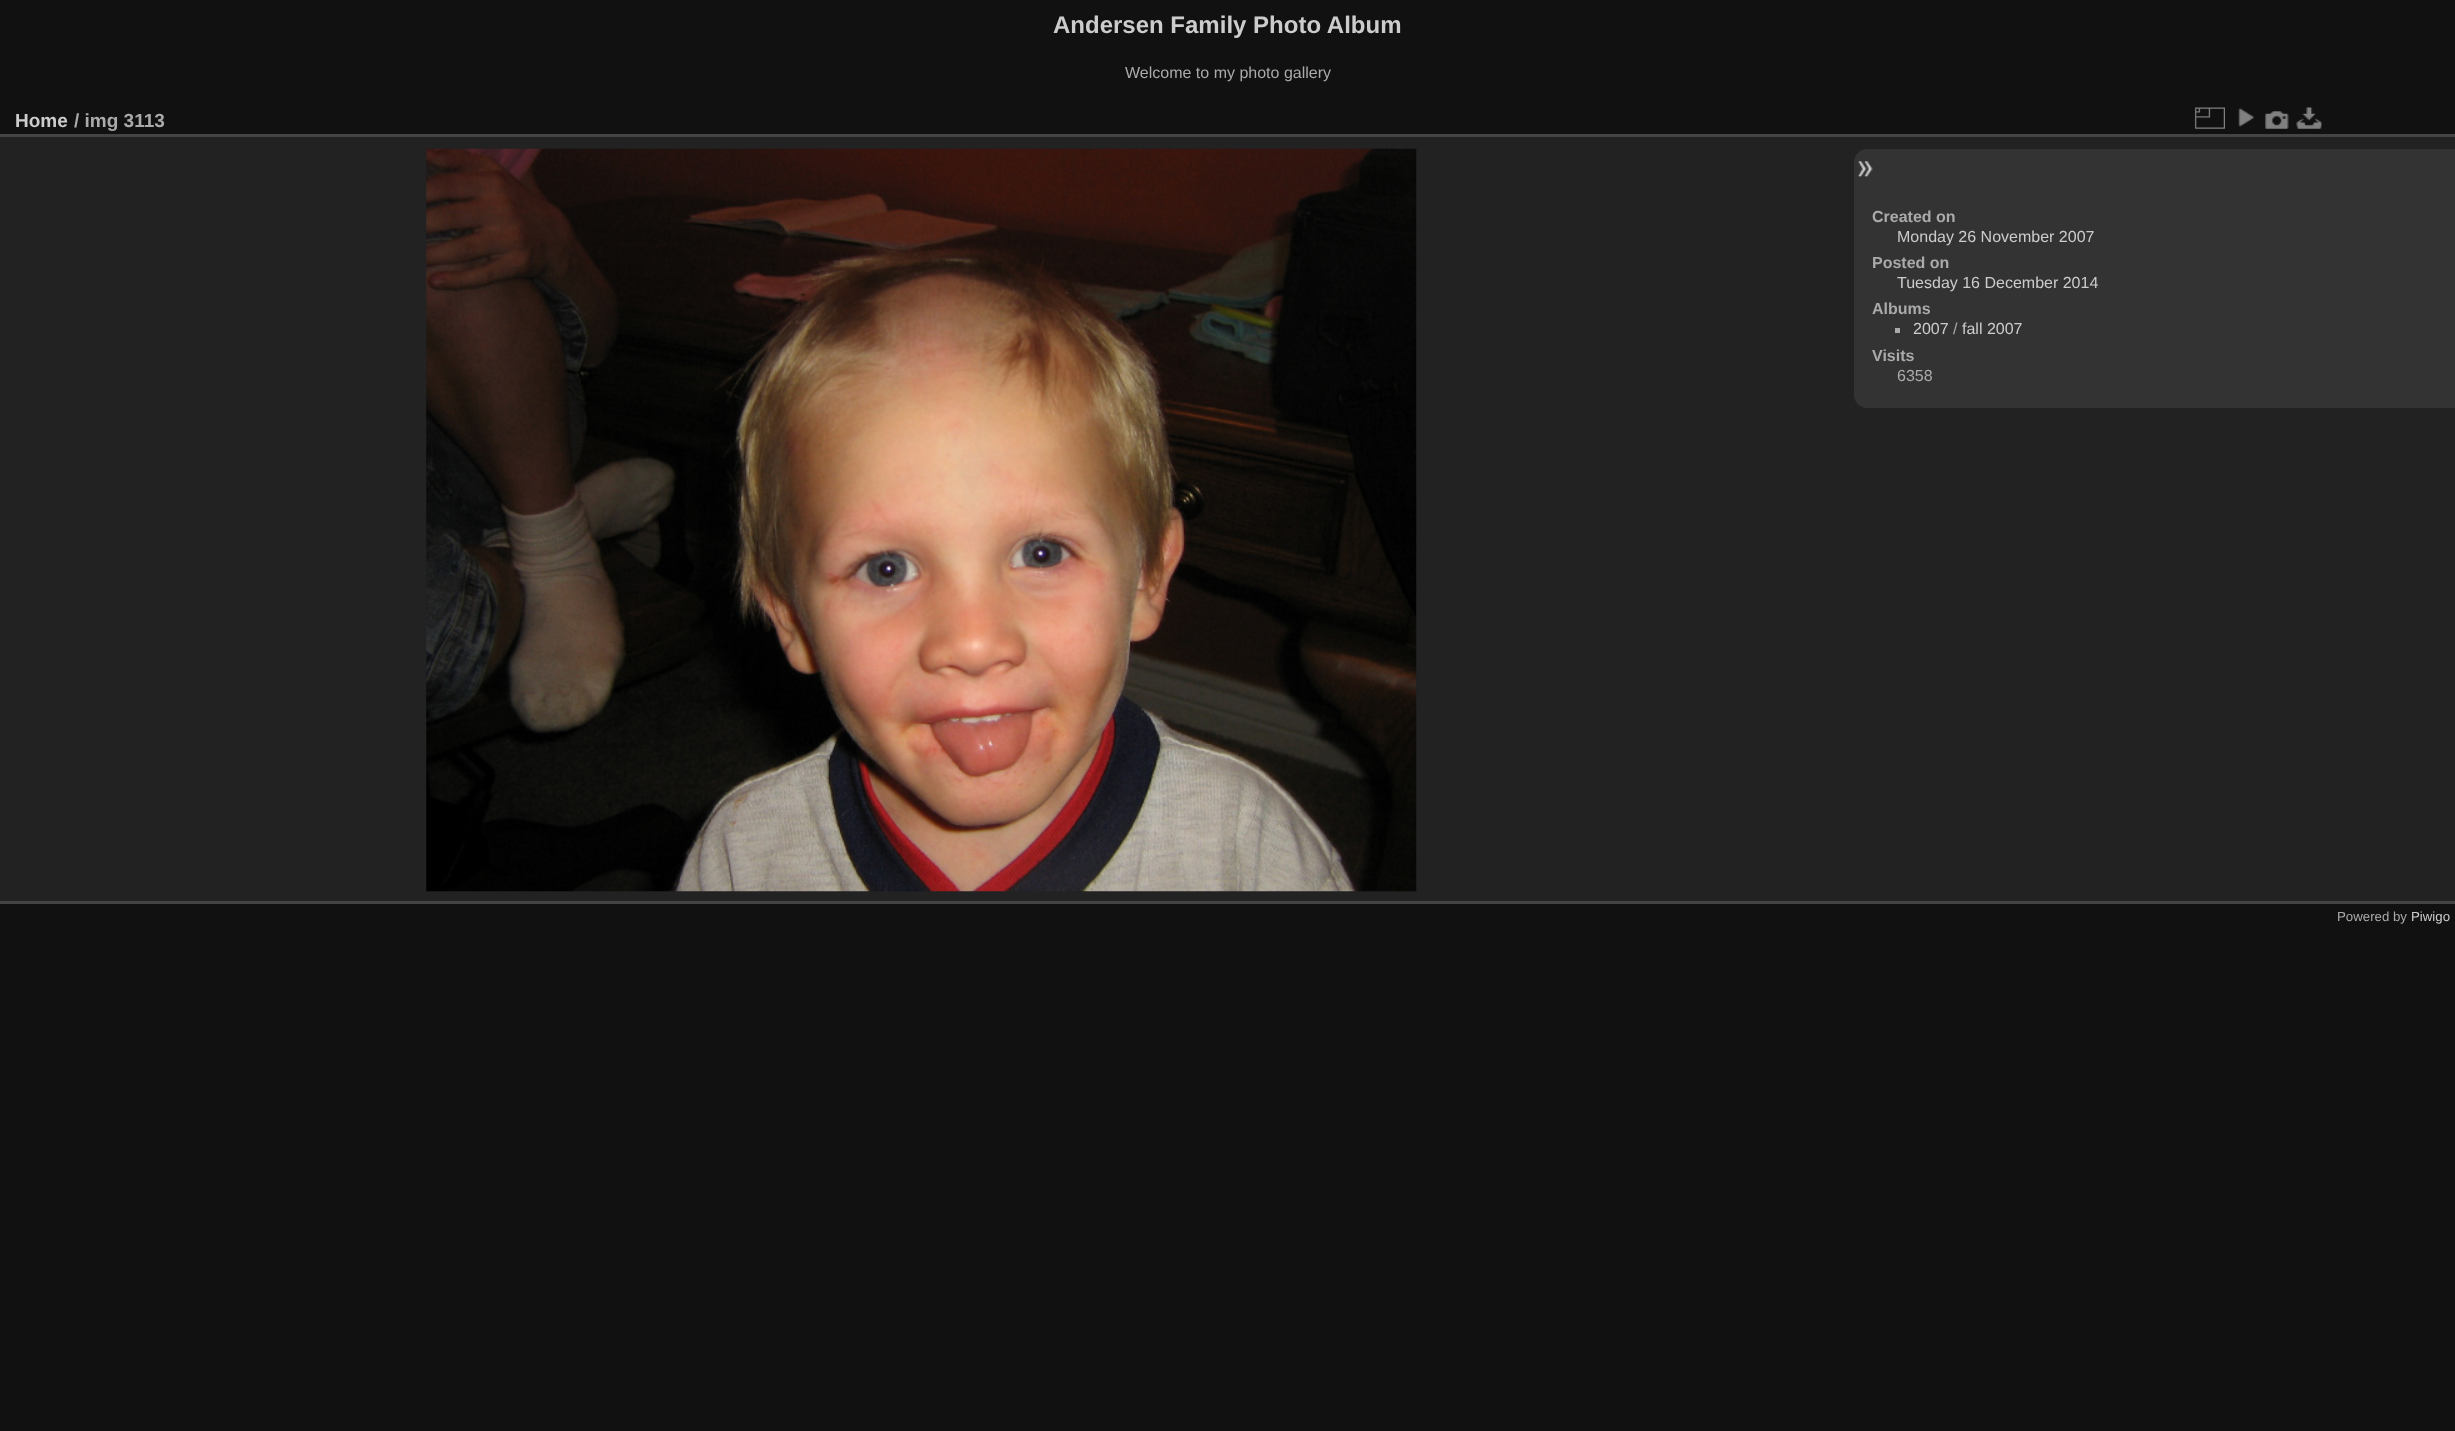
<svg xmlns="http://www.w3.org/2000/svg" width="2455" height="1431">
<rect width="100%" height="100%" fill="#111"/>
<text x="1053" y="33" style="font-family:Liberation Sans;font-size:24px;font-weight:bold;fill:#ccc">Andersen Family Photo Album</text>
<text x="1125" y="78" style="font-family:Liberation Sans;font-size:16px;fill:#aaa">Welcome to my photo gallery</text>
<rect y="137" width="2455" height="764" fill="#222"/>
<rect y="901" width="2455" height="3" fill="#444"/>
<rect y="134" width="2455" height="3" fill="#444"/>
<text x="15" y="127" style="font-family:Liberation Sans;font-size:19px;font-weight:bold;fill:#ccc">Home</text>
<text x="74" y="127" style="font-family:Liberation Sans;font-size:19px;font-weight:bold;fill:#aaa">/ img 3113</text>
<image x="2194" y="107" width="31" height="22" href="media/1.png"/>
<image x="2238" y="108" width="16" height="19" href="media/2.png"/>
<image x="2265" y="111" width="24" height="18" href="media/3.png"/>
<image x="2296" y="107" width="27" height="22" href="media/4.png"/>
<image x="426" y="148" width="991" height="744" href="media/5.png"/>
<path d="M1867 149h588v259h-588c-7 0-13-6-13-13v-233c0-7 6-13 13-13z" fill="#333"/>
<image x="1858" y="161" width="15" height="16" href="media/6.png"/>
<text x="1872" y="222" style="font-family:Liberation Sans;font-size:16px;font-weight:bold;fill:#aaa">Created on</text>
<text x="1897" y="242" style="font-family:Liberation Sans;font-size:16px;fill:#ccc">Monday 26 November 2007</text>
<text x="1872" y="268" style="font-family:Liberation Sans;font-size:16px;font-weight:bold;fill:#aaa">Posted on</text>
<text x="1897" y="288" style="font-family:Liberation Sans;font-size:16px;fill:#ccc">Tuesday 16 December 2014</text>
<text x="1872" y="314" style="font-family:Liberation Sans;font-size:16px;font-weight:bold;fill:#aaa">Albums</text>
<rect x="1895" y="328" width="5" height="5" fill="#aaa"/>
<text x="1913" y="334" style="font-family:Liberation Sans;font-size:16px;fill:#ccc">2007</text>
<text x="1953" y="334" style="font-family:Liberation Sans;font-size:16px;fill:#aaa">/</text>
<text x="1962" y="334" style="font-family:Liberation Sans;font-size:16px;fill:#ccc">fall 2007</text>
<text x="1872" y="361" style="font-family:Liberation Sans;font-size:16px;font-weight:bold;fill:#aaa">Visits</text>
<text x="1897" y="381" style="font-family:Liberation Sans;font-size:16px;fill:#aaa">6358</text>
<text x="2337" y="921" style="font-family:Liberation Sans;font-size:13.25px;fill:#aaa">Powered by</text>
<text x="2411" y="921" style="font-family:Liberation Sans;font-size:13.25px;fill:#ccc">Piwigo</text>
</svg>
